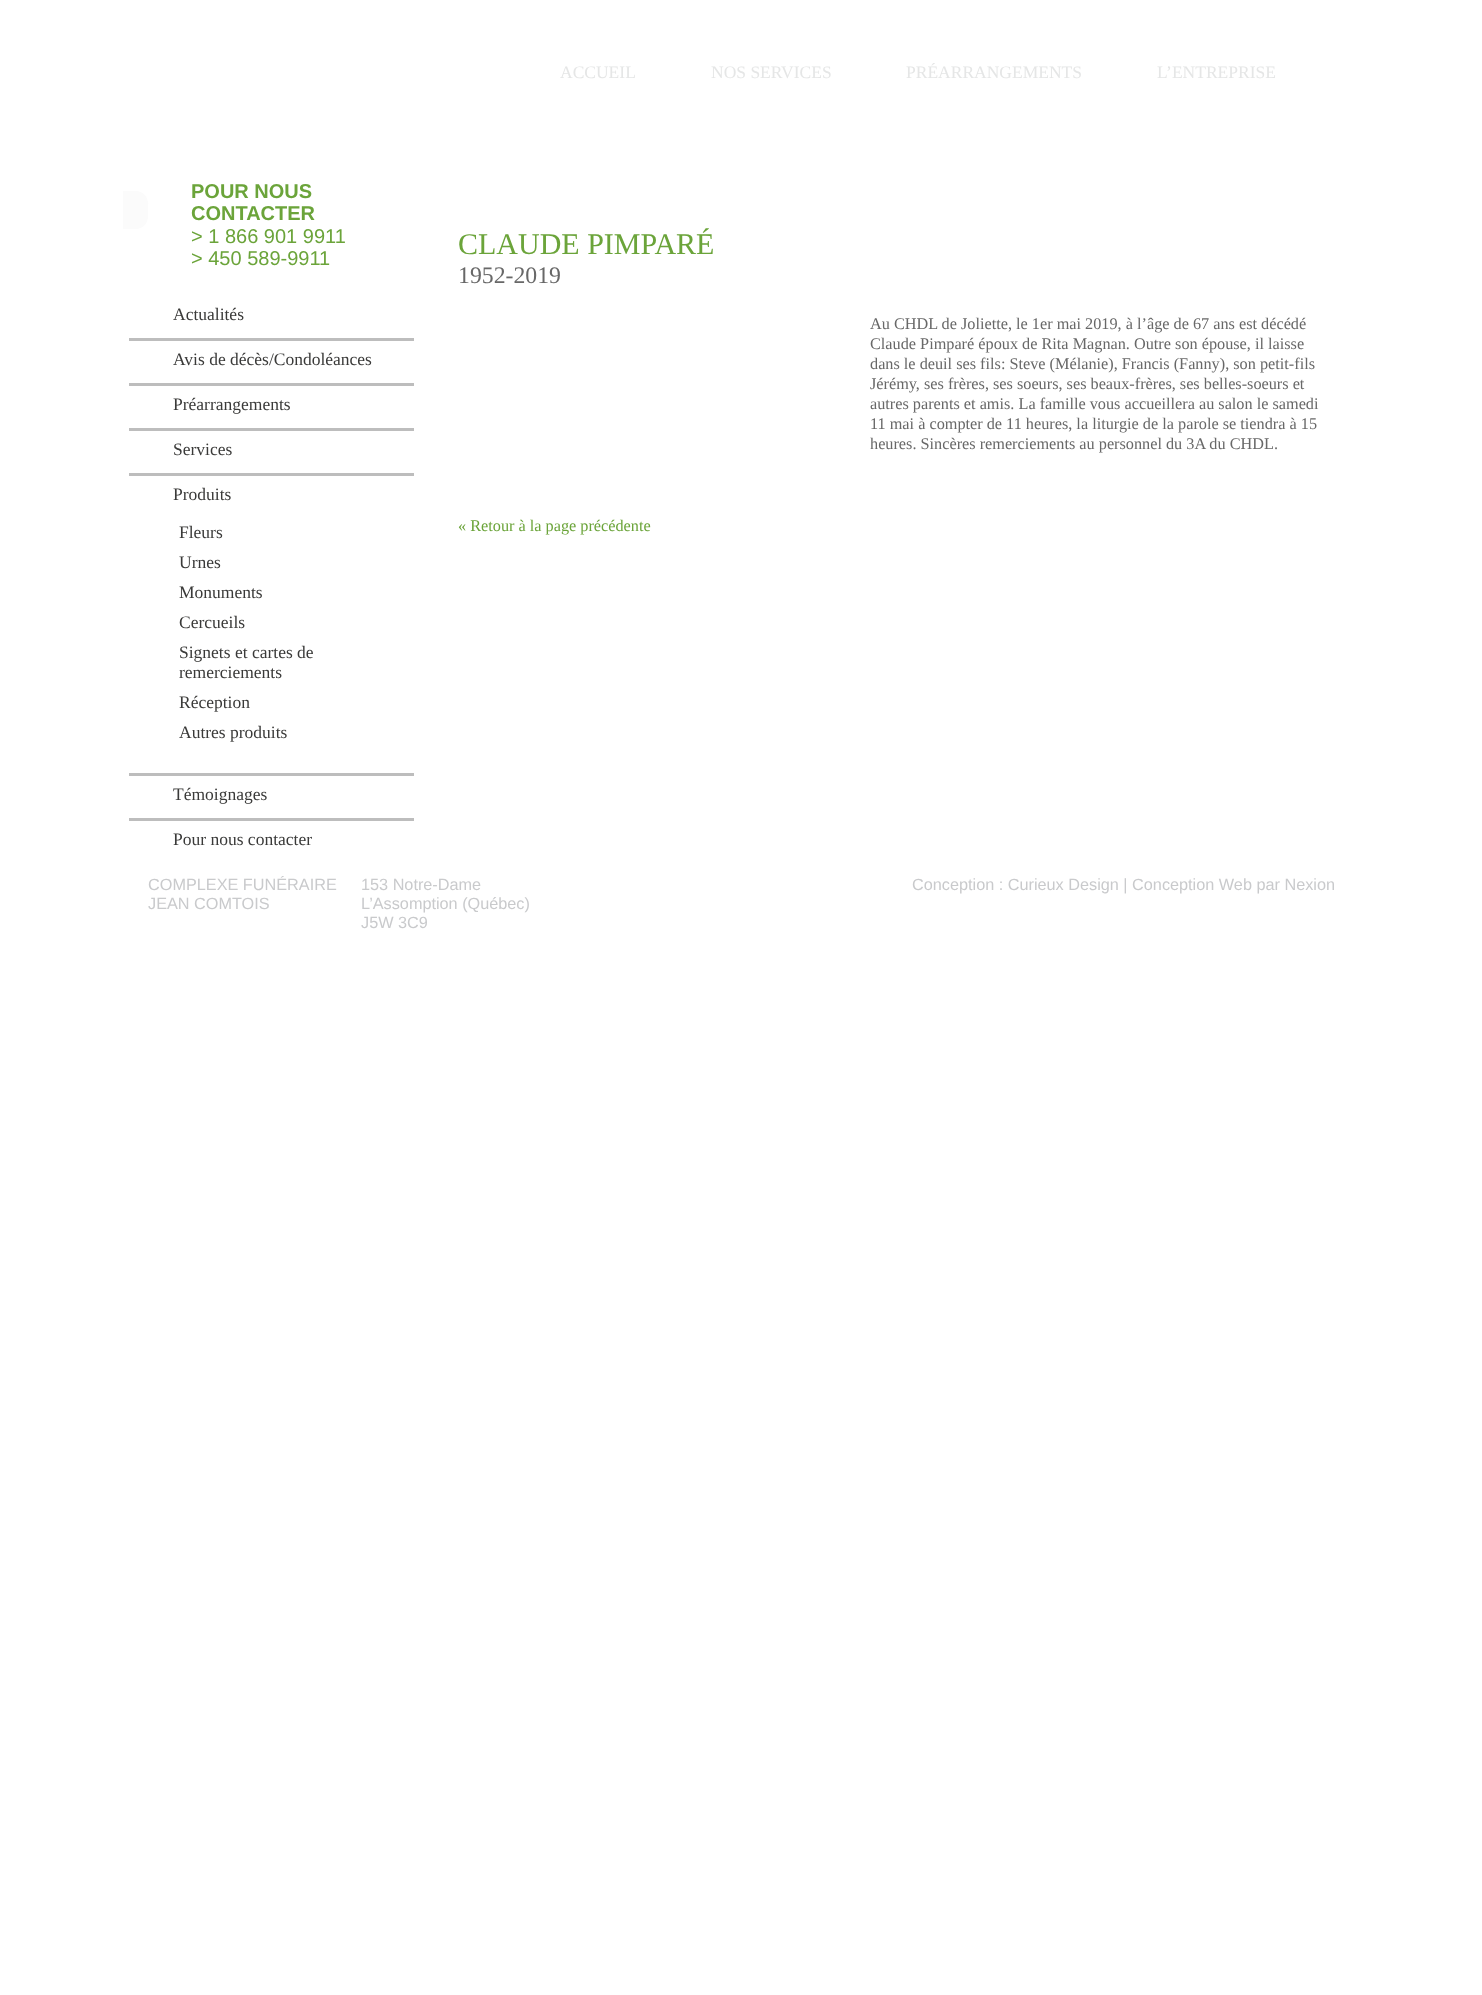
<svg xmlns="http://www.w3.org/2000/svg" width="1482" height="1995">
<rect width="100%" height="100%" fill="#fff"/>
<text x="560" y="78" style="font-family:Liberation Serif;font-size:17.5px;fill:#e5e6e6">ACCUEIL</text>
<text x="711" y="78" style="font-family:Liberation Serif;font-size:17.5px;fill:#e5e6e6">NOS SERVICES</text>
<text x="906" y="78" style="font-family:Liberation Serif;font-size:17.5px;fill:#e5e6e6">PRÉARRANGEMENTS</text>
<text x="1157" y="78" style="font-family:Liberation Serif;font-size:17.5px;fill:#e5e6e6">L’ENTREPRISE</text>
<path d="M123 191h12.5c7 0 12.5 5.5 12.5 12.5v13c0 7-5.5 12.5-12.5 12.5h-12.5z" fill="#fbfbfb"/>
<text x="191" y="198" style="font-family:Liberation Sans;font-size:20px;font-weight:bold;fill:#6ba43a">POUR NOUS</text>
<text x="191" y="220" style="font-family:Liberation Sans;font-size:20px;font-weight:bold;fill:#6ba43a">CONTACTER</text>
<text x="191" y="243" style="font-family:Liberation Sans;font-size:20px;fill:#6ba43a">&gt; 1 866 901 9911</text>
<text x="191" y="265" style="font-family:Liberation Sans;font-size:20px;fill:#6ba43a">&gt; 450 589-9911</text>
<text x="173" y="320" style="font-family:Liberation Serif;font-size:17.5px;fill:#3a3a39">Actualités</text>
<rect x="129" y="338" width="285" height="3" fill="#bdbdbd"/>
<text x="173" y="365" style="font-family:Liberation Serif;font-size:17.5px;fill:#3a3a39">Avis de décès/Condoléances</text>
<rect x="129" y="383" width="285" height="3" fill="#bdbdbd"/>
<text x="173" y="410" style="font-family:Liberation Serif;font-size:17.5px;fill:#3a3a39">Préarrangements</text>
<rect x="129" y="428" width="285" height="3" fill="#bdbdbd"/>
<text x="173" y="455" style="font-family:Liberation Serif;font-size:17.5px;fill:#3a3a39">Services</text>
<rect x="129" y="473" width="285" height="3" fill="#bdbdbd"/>
<text x="173" y="500" style="font-family:Liberation Serif;font-size:17.5px;fill:#3a3a39">Produits</text>
<text x="179" y="538" style="font-family:Liberation Serif;font-size:17.5px;fill:#3a3a39">Fleurs</text>
<text x="179" y="568" style="font-family:Liberation Serif;font-size:17.5px;fill:#3a3a39">Urnes</text>
<text x="179" y="598" style="font-family:Liberation Serif;font-size:17.5px;fill:#3a3a39">Monuments</text>
<text x="179" y="628" style="font-family:Liberation Serif;font-size:17.5px;fill:#3a3a39">Cercueils</text>
<text x="179" y="658" style="font-family:Liberation Serif;font-size:17.5px;fill:#3a3a39">Signets et cartes de</text>
<text x="179" y="678" style="font-family:Liberation Serif;font-size:17.5px;fill:#3a3a39">remerciements</text>
<text x="179" y="708" style="font-family:Liberation Serif;font-size:17.5px;fill:#3a3a39">Réception</text>
<text x="179" y="738" style="font-family:Liberation Serif;font-size:17.5px;fill:#3a3a39">Autres produits</text>
<rect x="129" y="773" width="285" height="3" fill="#bdbdbd"/>
<text x="173" y="800" style="font-family:Liberation Serif;font-size:17.5px;fill:#3a3a39">Témoignages</text>
<rect x="129" y="818" width="285" height="3" fill="#bdbdbd"/>
<text x="173" y="845" style="font-family:Liberation Serif;font-size:17.5px;fill:#3a3a39">Pour nous contacter</text>
<text x="458" y="254" style="font-family:Liberation Serif;font-size:30px;fill:#6ba43a">CLAUDE PIMPARÉ</text>
<text x="458" y="283" style="font-family:Liberation Serif;font-size:23.75px;fill:#686868">1952-2019</text>
<text x="870" y="329" style="font-family:Liberation Serif;font-size:16.25px;fill:#686868">Au CHDL de Joliette, le 1er mai 2019, à l’âge de 67 ans est décédé</text>
<text x="870" y="349" style="font-family:Liberation Serif;font-size:16.25px;fill:#686868">Claude Pimparé époux de Rita Magnan. Outre son épouse, il laisse</text>
<text x="870" y="369" style="font-family:Liberation Serif;font-size:16.25px;fill:#686868">dans le deuil ses fils: Steve (Mélanie), Francis (Fanny), son petit-fils</text>
<text x="870" y="389" style="font-family:Liberation Serif;font-size:16.25px;fill:#686868">Jérémy, ses frères, ses soeurs, ses beaux-frères, ses belles-soeurs et</text>
<text x="870" y="409" style="font-family:Liberation Serif;font-size:16.25px;fill:#686868">autres parents et amis. La famille vous accueillera au salon le samedi</text>
<text x="870" y="429" style="font-family:Liberation Serif;font-size:16.25px;fill:#686868">11 mai à compter de 11 heures, la liturgie de la parole se tiendra à 15</text>
<text x="870" y="449" style="font-family:Liberation Serif;font-size:16.25px;fill:#686868">heures. Sincères remerciements au personnel du 3A du CHDL.</text>
<text x="458" y="531" style="font-family:Liberation Serif;font-size:16.25px;fill:#6ba43a">« Retour à la page précédente</text>
<text x="148" y="890" style="font-family:Liberation Sans;font-size:16.25px;fill:#c9cacc">COMPLEXE FUNÉRAIRE</text>
<text x="148" y="909" style="font-family:Liberation Sans;font-size:16.25px;fill:#c9cacc">JEAN COMTOIS</text>
<text x="361" y="890" style="font-family:Liberation Sans;font-size:16.25px;fill:#c9cacc">153 Notre-Dame</text>
<text x="361" y="909" style="font-family:Liberation Sans;font-size:16.25px;fill:#c9cacc">L’Assomption (Québec)</text>
<text x="361" y="928" style="font-family:Liberation Sans;font-size:16.25px;fill:#c9cacc">J5W 3C9</text>
<text x="912" y="890" style="font-family:Liberation Sans;font-size:16.25px;fill:#c9cacc">Conception : Curieux Design | Conception Web par Nexion</text>
</svg>
